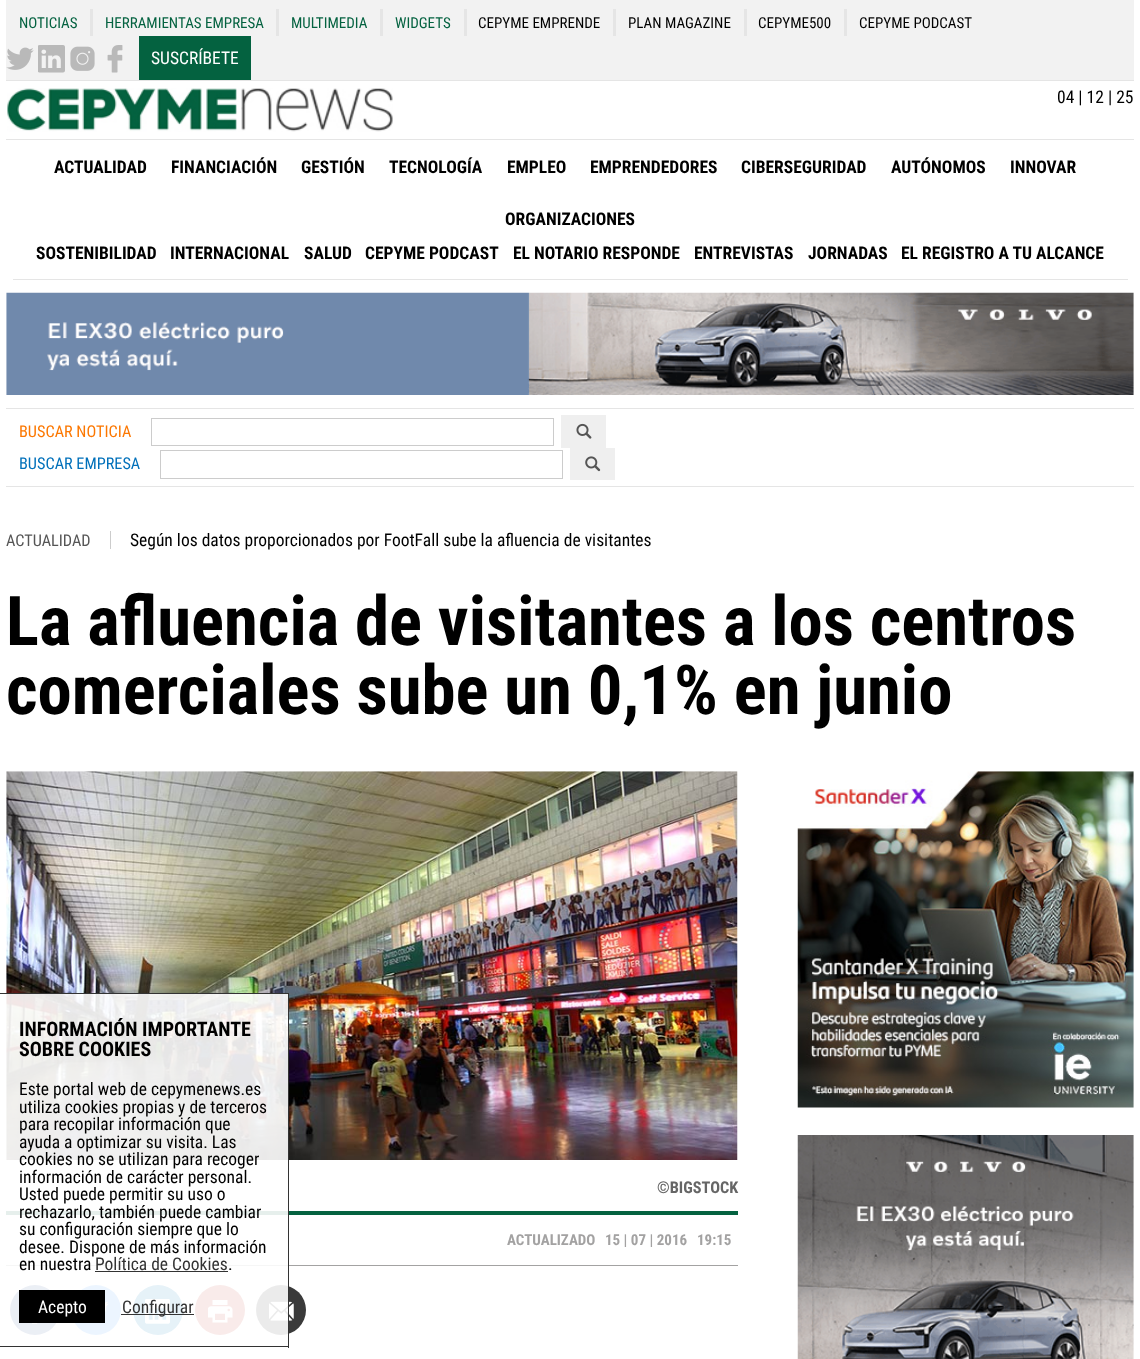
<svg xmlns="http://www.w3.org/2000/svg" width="1140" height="1359">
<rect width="100%" height="100%" fill="#fff"/>
<rect x="6" width="1128" height="80" fill="#f2f2f2"/>
<rect x="6" y="80" width="1128" height="1" fill="#e5e5e5"/>
<rect x="90" y="9" width="3" height="27" fill="#e5e5e5"/>
<text x="19" y="28" style="font-family:Roboto Condensed;font-size:15px;fill:#046240">NOTICIAS</text>
<rect x="276" y="9" width="3" height="27" fill="#e5e5e5"/>
<text x="105" y="28" style="font-family:Roboto Condensed;font-size:15px;fill:#046240">HERRAMIENTAS EMPRESA</text>
<rect x="380" y="9" width="3" height="27" fill="#e5e5e5"/>
<text x="291" y="28" style="font-family:Roboto Condensed;font-size:15px;fill:#046240">MULTIMEDIA</text>
<rect x="464" y="9" width="3" height="27" fill="#e5e5e5"/>
<text x="395" y="28" style="font-family:Roboto Condensed;font-size:15px;fill:#046240">WIDGETS</text>
<rect x="613" y="9" width="3" height="27" fill="#e5e5e5"/>
<text x="478" y="28" style="font-family:Roboto Condensed;font-size:15px;fill:#000">CEPYME EMPRENDE</text>
<rect x="744" y="9" width="3" height="27" fill="#e5e5e5"/>
<text x="628" y="28" style="font-family:Roboto Condensed;font-size:15px;fill:#000">PLAN MAGAZINE</text>
<rect x="844" y="9" width="3" height="27" fill="#e5e5e5"/>
<text x="758" y="28" style="font-family:Roboto Condensed;font-size:15px;fill:#000">CEPYME500</text>
<text x="859" y="28" style="font-family:Roboto Condensed;font-size:15px;fill:#000">CEPYME PODCAST</text>
<image x="6" y="47" width="28" height="23" href="media/1.png"/>
<image x="38" y="45" width="27" height="28" href="media/2.png"/>
<image x="70" y="46" width="25" height="25" href="media/3.png"/>
<image x="107" y="45" width="16" height="28" href="media/4.png"/>
<rect x="139" y="36" width="112" height="44" fill="#046240"/>
<text x="151" y="64" style="font-family:Roboto Condensed;font-size:17.5px;fill:#fff">SUSCRÍBETE</text>
<image x="7" y="88" width="386" height="44" href="media/5.png"/>
<text x="1057" y="103" style="font-family:Roboto Condensed;font-size:17.5px;fill:#000">04 | 12 | 25</text>
<rect x="6" y="139" width="1128" height="1" fill="#e5e5e5"/>
<rect x="13" y="279" width="1115" height="1" fill="#e5e5e5"/>
<text x="54" y="173" style="font-family:Roboto Condensed;font-size:17.5px;font-weight:bold;fill:#000">ACTUALIDAD</text>
<text x="171" y="173" style="font-family:Roboto Condensed;font-size:17.5px;font-weight:bold;fill:#000">FINANCIACIÓN</text>
<text x="301" y="173" style="font-family:Roboto Condensed;font-size:17.5px;font-weight:bold;fill:#000">GESTIÓN</text>
<text x="389" y="173" style="font-family:Roboto Condensed;font-size:17.5px;font-weight:bold;fill:#000">TECNOLOGÍA</text>
<text x="507" y="173" style="font-family:Roboto Condensed;font-size:17.5px;font-weight:bold;fill:#000">EMPLEO</text>
<text x="590" y="173" style="font-family:Roboto Condensed;font-size:17.5px;font-weight:bold;fill:#000">EMPRENDEDORES</text>
<text x="741" y="173" style="font-family:Roboto Condensed;font-size:17.5px;font-weight:bold;fill:#000">CIBERSEGURIDAD</text>
<text x="891" y="173" style="font-family:Roboto Condensed;font-size:17.5px;font-weight:bold;fill:#000">AUTÓNOMOS</text>
<text x="1010" y="173" style="font-family:Roboto Condensed;font-size:17.5px;font-weight:bold;fill:#000">INNOVAR</text>
<text x="505" y="225" style="font-family:Roboto Condensed;font-size:17.5px;font-weight:bold;fill:#000">ORGANIZACIONES</text>
<text x="36" y="259" style="font-family:Roboto Condensed;font-size:17.5px;font-weight:bold;fill:#000">SOSTENIBILIDAD</text>
<text x="170" y="259" style="font-family:Roboto Condensed;font-size:17.5px;font-weight:bold;fill:#000">INTERNACIONAL</text>
<text x="304" y="259" style="font-family:Roboto Condensed;font-size:17.5px;font-weight:bold;fill:#000">SALUD</text>
<text x="365" y="259" style="font-family:Roboto Condensed;font-size:17.5px;font-weight:bold;fill:#000">CEPYME PODCAST</text>
<text x="513" y="259" style="font-family:Roboto Condensed;font-size:17.5px;font-weight:bold;fill:#000">EL NOTARIO RESPONDE</text>
<text x="694" y="259" style="font-family:Roboto Condensed;font-size:17.5px;font-weight:bold;fill:#000">ENTREVISTAS</text>
<text x="808" y="259" style="font-family:Roboto Condensed;font-size:17.5px;font-weight:bold;fill:#000">JORNADAS</text>
<text x="901" y="259" style="font-family:Roboto Condensed;font-size:17.5px;font-weight:bold;fill:#000">EL REGISTRO A TU ALCANCE</text>
<image x="6" y="292" width="1128" height="103" href="media/6.png"/>
<rect x="6" y="408" width="1128" height="1" fill="#e5e5e5"/>
<rect x="6" y="486" width="1128" height="1" fill="#e5e5e5"/>
<text x="19" y="437" style="font-family:Roboto Condensed;font-size:16.25px;fill:#fc7700">BUSCAR NOTICIA</text>
<rect x="151.5" y="418.5" width="402" height="27" fill="none" stroke="#ccc"/>
<rect x="561" y="415" width="45" height="33" fill="#efefef"/>
<image x="576" y="423" width="16" height="16" href="media/7.png"/>
<text x="19" y="469" style="font-family:Roboto Condensed;font-size:16.25px;fill:#0070ba">BUSCAR EMPRESA</text>
<rect x="160.5" y="450.5" width="402" height="28" fill="none" stroke="#ccc"/>
<rect x="570" y="448" width="45" height="32" fill="#efefef"/>
<image x="585" y="456" width="16" height="16" href="media/8.png"/>
<text x="6" y="546" style="font-family:Roboto Condensed;font-size:16.25px;fill:#555">ACTUALIDAD</text>
<rect x="110" y="531" width="1" height="18" fill="#ccc"/>
<text x="130" y="546" style="font-family:Roboto Condensed;font-size:17.5px;fill:#000">Según los datos proporcionados por FootFall sube la afluencia de visitantes</text>
<text x="6" y="645" style="font-family:Roboto Condensed;font-size:68.75px;font-weight:bold;fill:#000">La afluencia de visitantes a los centros</text>
<text x="6" y="714" style="font-family:Roboto Condensed;font-size:68.75px;font-weight:bold;fill:#000">comerciales sube un 0,1% en junio</text>
<image x="6" y="771" width="732" height="389" href="media/9.png"/>
<text x="657" y="1193" style="font-family:Roboto Condensed;font-size:16.25px;font-weight:bold;fill:#666">©BIGSTOCK</text>
<rect x="6" y="1211" width="732" height="4" fill="#046240"/>
<rect x="6" y="1265" width="732" height="1" fill="#a3a2a2"/>
<text x="507" y="1245" style="font-family:Roboto Condensed;font-size:15px;font-weight:bold;fill:#a3a2a2">ACTUALIZADO</text>
<text x="605" y="1245" style="font-family:Roboto Condensed;font-size:15px;font-weight:bold;fill:#a3a2a2">15 | 07 | 2016</text>
<text x="697" y="1245" style="font-family:Roboto Condensed;font-size:15px;font-weight:bold;fill:#a3a2a2">19:15</text>
<circle cx="35" cy="1310" r="25" fill="#3b5998"/>
<image x="32" y="1323" width="6" height="1" href="media/10.png"/>
<circle cx="96" cy="1310" r="25" fill="#4099ff"/>
<image x="105" y="1301" width="4" height="12" href="media/11.png"/>
<circle cx="158" cy="1310" r="25" fill="#0077b5"/>
<image x="145" y="1299" width="25" height="25" href="media/12.png"/>
<circle cx="220" cy="1310" r="25" fill="#c0392b"/>
<image x="208" y="1300" width="25" height="23" href="media/13.png"/>
<circle cx="281" cy="1310" r="25" fill="#3a3a3a"/>
<image x="269" y="1301" width="25" height="20" href="media/14.png"/>
<image x="797" y="771" width="337" height="337" href="media/15.png"/>
<image x="797" y="1135" width="337" height="224" href="media/16.png"/>
<rect x="6" y="994" width="282" height="341" fill="#ffffffe6"/>
<rect y="993" width="289" height="1" fill="#333"/>
<rect x="288" y="993" width="1" height="355" fill="#333"/>
<rect y="1346" width="289" height="1" fill="#333"/>
<text x="19" y="1036" style="font-family:Roboto Condensed;font-size:20px;font-weight:bold;fill:#000">INFORMACIÓN IMPORTANTE</text>
<text x="19" y="1056" style="font-family:Roboto Condensed;font-size:20px;font-weight:bold;fill:#000">SOBRE COOKIES</text>
<text x="19" y="1095" style="font-family:Roboto Condensed;font-size:17.5px;fill:#000">Este portal web de cepymenews.es</text>
<text x="19" y="1113" style="font-family:Roboto Condensed;font-size:17.5px;fill:#000">utiliza cookies propias y de terceros</text>
<text x="19" y="1130" style="font-family:Roboto Condensed;font-size:17.5px;fill:#000">para recopilar información que</text>
<text x="19" y="1148" style="font-family:Roboto Condensed;font-size:17.5px;fill:#000">ayuda a optimizar su visita. Las</text>
<text x="19" y="1165" style="font-family:Roboto Condensed;font-size:17.5px;fill:#000">cookies no se utilizan para recoger</text>
<text x="19" y="1183" style="font-family:Roboto Condensed;font-size:17.5px;fill:#000">información de carácter personal.</text>
<text x="19" y="1200" style="font-family:Roboto Condensed;font-size:17.5px;fill:#000">Usted puede permitir su uso o</text>
<text x="19" y="1218" style="font-family:Roboto Condensed;font-size:17.5px;fill:#000">rechazarlo, también puede cambiar</text>
<text x="19" y="1235" style="font-family:Roboto Condensed;font-size:17.5px;fill:#000">su configuración siempre que lo</text>
<text x="19" y="1253" style="font-family:Roboto Condensed;font-size:17.5px;fill:#000">desee. Dispone de más información</text>
<text x="19" y="1270" style="font-family:Roboto Condensed;font-size:17.5px;fill:#000">en nuestra</text>
<text x="95" y="1270" style="font-family:Roboto Condensed;font-size:17.5px;fill:#333">Política de Cookies</text>
<rect x="95" y="1271" width="133" height="1" fill="#333"/>
<text x="228" y="1270" style="font-family:Roboto Condensed;font-size:17.5px;fill:#000">.</text>
<rect x="19" y="1290" width="86" height="33" fill="#000"/>
<text x="38" y="1313" style="font-family:Roboto Condensed;font-size:17.5px;fill:#fff">Acepto</text>
<rect x="121" y="1314" width="73" height="1" fill="#333"/>
<text x="122" y="1313" style="font-family:Roboto Condensed;font-size:17.5px;fill:#333">Configurar</text>
</svg>
